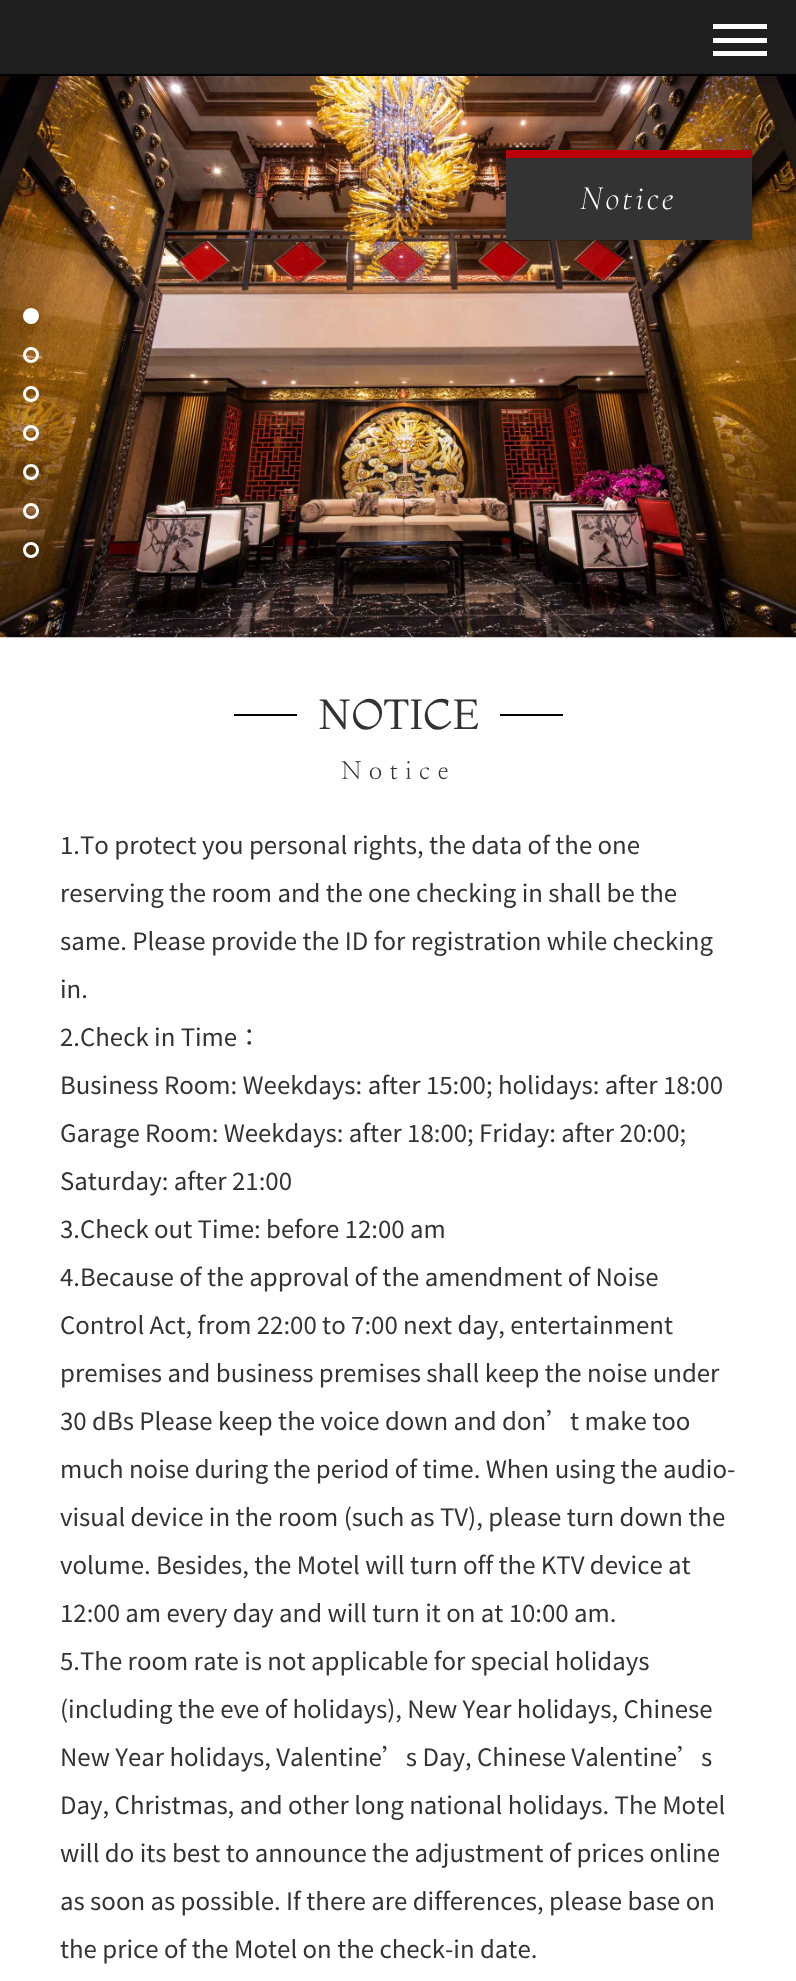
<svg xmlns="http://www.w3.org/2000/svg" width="796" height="1981">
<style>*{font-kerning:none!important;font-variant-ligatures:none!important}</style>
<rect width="100%" height="100%" fill="#fff"/>
<rect width="796" height="74" fill="#1e1e1e"/>
<rect y="74" width="796" height="2" fill="#000"/>
<rect x="713" y="24" width="54" height="5" fill="#fff"/>
<rect x="713" y="38" width="54" height="5" fill="#fff"/>
<rect x="713" y="51" width="54" height="5" fill="#fff"/>
<image x="0" y="76" width="796" height="562" href="media/1.png"/>
<circle cx="31" cy="316" r="6.5" fill="#fff" stroke="#fff" stroke-width="3"/>
<circle cx="31" cy="355" r="6.5" fill="none" stroke="#fff" stroke-width="3"/>
<circle cx="31" cy="394" r="6.5" fill="none" stroke="#fff" stroke-width="3"/>
<circle cx="31" cy="433" r="6.5" fill="none" stroke="#fff" stroke-width="3"/>
<circle cx="31" cy="472" r="6.5" fill="none" stroke="#fff" stroke-width="3"/>
<circle cx="31" cy="511" r="6.5" fill="none" stroke="#fff" stroke-width="3"/>
<circle cx="31" cy="550" r="6.5" fill="none" stroke="#fff" stroke-width="3"/>
<rect x="510" y="155" width="246" height="90" fill="#00000040" filter="blur(6px)"/>
<rect x="506" y="158" width="246" height="82" fill="#333"/>
<rect x="506" y="150" width="246" height="8" fill="#bb000a"/>
<text x="580" y="209" style="font-family:Cormorant Garamond;font-size:34.5px;font-weight:300;font-style:italic;letter-spacing:3px;fill:#fff">Notice</text>
<rect x="234" y="714" width="63" height="2" fill="#000"/>
<text x="318" y="729" style="font-family:Montaga;font-size:42px;fill:#333">NOTICE</text>
<rect x="500" y="714" width="63" height="2" fill="#000"/>
<text x="341" y="779" style="font-family:NanumMyeongjo;font-size:24px;letter-spacing:7.5px;fill:#333">Notice</text>
<text x="60" y="854" style="font-family:Noto Sans TC;font-size:24px;fill:#333">1.To protect</text>
<text x="202" y="854" style="font-family:Noto Sans TC;font-size:24px;fill:#333">you personal rights, the data of the one</text>
<text x="60" y="902" style="font-family:Noto Sans TC;font-size:24px;fill:#333">reserving the room and the one checking in shall be the</text>
<text x="60" y="950" style="font-family:Noto Sans TC;font-size:24px;fill:#333">same. Please provide the ID for registration while checking</text>
<text x="60" y="998" style="font-family:Noto Sans TC;font-size:24px;fill:#333">in.</text>
<text x="60" y="1046" style="font-family:Noto Sans TC;font-size:24px;fill:#333">2.Check in Time：</text>
<text x="60" y="1094" style="font-family:Noto Sans TC;font-size:24px;fill:#333">Business Room: Weekdays: after 15:00; holidays: after 18:00</text>
<text x="60" y="1142" style="font-family:Noto Sans TC;font-size:24px;fill:#333">Garage Room: Weekdays: after 18:00; Friday: after 20:00;</text>
<text x="60" y="1190" style="font-family:Noto Sans TC;font-size:24px;fill:#333">Saturday: after 21:00</text>
<text x="60" y="1238" style="font-family:Noto Sans TC;font-size:24px;fill:#333">3.Check out Time: before 12:00 am</text>
<text x="60" y="1286" style="font-family:Noto Sans TC;font-size:24px;fill:#333">4.Because of the approval of the amendment of Noise</text>
<text x="60" y="1334" style="font-family:Noto Sans TC;font-size:24px;fill:#333">Control Act, from 22:00 to 7:00 next day, entertainment</text>
<text x="60" y="1382" style="font-family:Noto Sans TC;font-size:24px;fill:#333">premises and business premises shall keep the noise under</text>
<text x="60" y="1430" style="font-family:Noto Sans TC;font-size:24px;fill:#333">30 dBs Please keep the voice down and don’t make too</text>
<text x="60" y="1478" style="font-family:Noto Sans TC;font-size:24px;fill:#333">much noise during the period of time. When using the audio-</text>
<text x="60" y="1526" style="font-family:Noto Sans TC;font-size:24px;fill:#333">visual device in the room (such as TV), please turn down the</text>
<text x="60" y="1574" style="font-family:Noto Sans TC;font-size:24px;fill:#333">volume. Besides, the Motel will turn off the KTV device at</text>
<text x="60" y="1622" style="font-family:Noto Sans TC;font-size:24px;fill:#333">12:00 am every day and will turn it on at 10:00 am.</text>
<text x="60" y="1670" style="font-family:Noto Sans TC;font-size:24px;fill:#333">5.The room rate is not</text>
<text x="311" y="1670" style="font-family:Noto Sans TC;font-size:24px;fill:#333">applicable for special holidays</text>
<text x="60" y="1718" style="font-family:Noto Sans TC;font-size:24px;fill:#333">(including the eve of holidays), New Year holidays, Chinese</text>
<text x="60" y="1766" style="font-family:Noto Sans TC;font-size:24px;fill:#333">New Year holidays, Valentine’s Day, Chinese Valentine’s</text>
<text x="60" y="1814" style="font-family:Noto Sans TC;font-size:24px;fill:#333">Day, Christmas, and other long national holidays. The Motel</text>
<text x="60" y="1862" style="font-family:Noto Sans TC;font-size:24px;fill:#333">will do its best to announce the adjustment of prices online</text>
<text x="60" y="1910" style="font-family:Noto Sans TC;font-size:24px;fill:#333">as soon as possible. If there are differences, please base on</text>
<text x="60" y="1958" style="font-family:Noto Sans TC;font-size:24px;fill:#333">the price of the Motel on the check-in date.</text>
</svg>
